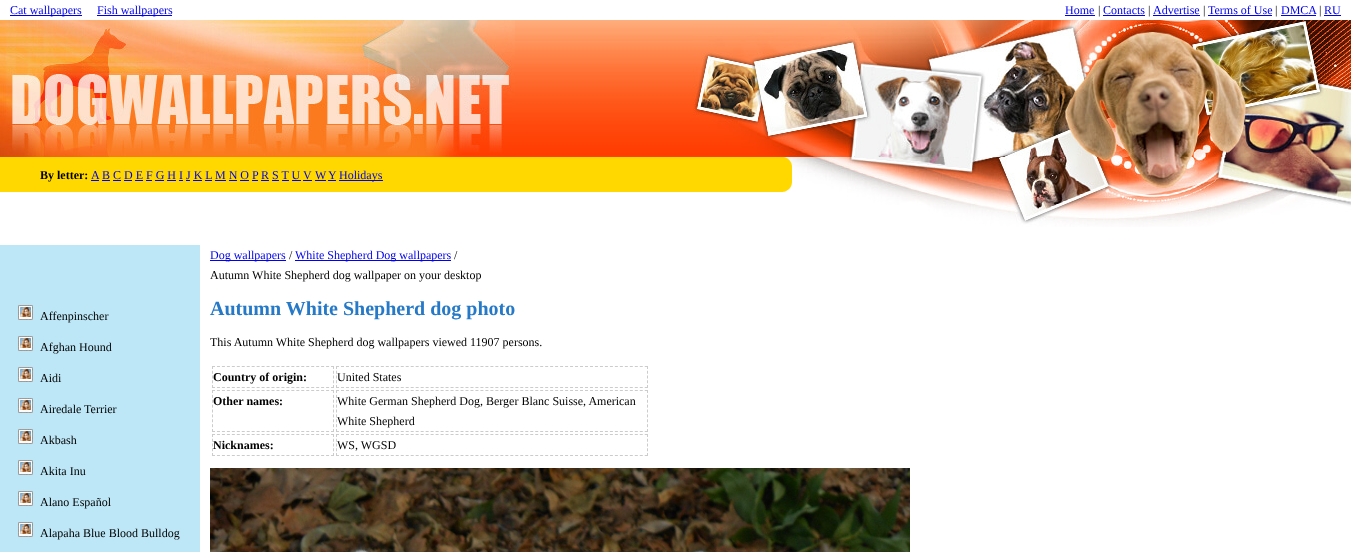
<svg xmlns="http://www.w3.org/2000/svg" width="1351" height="552">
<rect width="100%" height="100%" fill="#fff"/>
<rect x="10" y="15" width="72" height="1" fill="#00e"/>
<text x="10" y="14" style="font-family:Liberation Serif;font-size:12px;fill:#00e">Cat wallpapers</text>
<rect x="97" y="15" width="75" height="1" fill="#00e"/>
<text x="97" y="14" style="font-family:Liberation Serif;font-size:12px;fill:#00e">Fish wallpapers</text>
<text x="1065" y="14" style="font-family:Liberation Serif;font-size:12px;fill:#00e">Home</text>
<rect x="1065" y="15" width="30" height="1" fill="#00e"/>
<text x="1098" y="14" style="font-family:Liberation Serif;font-size:12px;fill:#000">|</text>
<text x="1103" y="14" style="font-family:Liberation Serif;font-size:12px;fill:#00e">Contacts</text>
<rect x="1103" y="15" width="42" height="1" fill="#00e"/>
<text x="1148" y="14" style="font-family:Liberation Serif;font-size:12px;fill:#000">|</text>
<text x="1153" y="14" style="font-family:Liberation Serif;font-size:12px;fill:#00e">Advertise</text>
<rect x="1153" y="15" width="47" height="1" fill="#00e"/>
<text x="1203" y="14" style="font-family:Liberation Serif;font-size:12px;fill:#000">|</text>
<text x="1208" y="14" style="font-family:Liberation Serif;font-size:12px;fill:#00e">Terms of Use</text>
<rect x="1208" y="15" width="64" height="1" fill="#00e"/>
<text x="1275" y="14" style="font-family:Liberation Serif;font-size:12px;fill:#000">|</text>
<text x="1281" y="14" style="font-family:Liberation Serif;font-size:12px;fill:#00e">DMCA</text>
<rect x="1281" y="15" width="35" height="1" fill="#00e"/>
<text x="1319" y="14" style="font-family:Liberation Serif;font-size:12px;fill:#000">|</text>
<text x="1324" y="14" style="font-family:Liberation Serif;font-size:12px;fill:#00e">RU</text>
<rect x="1324" y="15" width="17" height="1" fill="#00e"/>
<image x="515" y="20" width="178" height="137" href="media/1.png"/>
<image x="0" y="20" width="515" height="137" href="media/2.png"/>
<image x="693" y="20" width="658" height="137" href="media/3.png"/>
<image x="775" y="157" width="576" height="70" href="media/4.png"/>
<rect y="157" width="779" height="35" fill="#ffd800"/>
<text x="40" y="179" style="font-family:Liberation Serif;font-size:12px;font-weight:bold;fill:#000">By letter:</text>
<text x="91" y="179" style="font-family:Liberation Serif;font-size:12px;fill:#00e">A</text>
<rect x="91" y="180" width="8" height="1" fill="#00e"/>
<text x="102" y="179" style="font-family:Liberation Serif;font-size:12px;fill:#00e">B C D E F G H I J K L</text>
<rect x="102" y="180" width="8" height="1" fill="#00e"/>
<text x="215" y="179" style="font-family:Liberation Serif;font-size:12px;fill:#00e">M N O P</text>
<rect x="215" y="180" width="11" height="1" fill="#00e"/>
<text x="261" y="179" style="font-family:Liberation Serif;font-size:12px;fill:#00e">R S T U V</text>
<rect x="261" y="180" width="8" height="1" fill="#00e"/>
<text x="315" y="179" style="font-family:Liberation Serif;font-size:12px;fill:#00e">W</text>
<rect x="315" y="180" width="11" height="1" fill="#00e"/>
<text x="328" y="179" style="font-family:Liberation Serif;font-size:12px;fill:#00e">Y</text>
<rect x="328" y="180" width="8" height="1" fill="#00e"/>
<rect x="339" y="180" width="44" height="1" fill="#00e"/>
<text x="339" y="179" style="font-family:Liberation Serif;font-size:12px;fill:#00e">Holidays</text>
<rect x="113" y="180" width="8" height="1" fill="#00e"/>
<rect x="124" y="180" width="8" height="1" fill="#00e"/>
<rect x="135" y="180" width="8" height="1" fill="#00e"/>
<rect x="146" y="180" width="6" height="1" fill="#00e"/>
<rect x="155" y="180" width="9" height="1" fill="#00e"/>
<rect x="167" y="180" width="9" height="1" fill="#00e"/>
<rect x="179" y="180" width="4" height="1" fill="#00e"/>
<rect x="186" y="180" width="4" height="1" fill="#00e"/>
<rect x="193" y="180" width="9" height="1" fill="#00e"/>
<rect x="205" y="180" width="7" height="1" fill="#00e"/>
<rect x="229" y="180" width="8" height="1" fill="#00e"/>
<rect x="240" y="180" width="9" height="1" fill="#00e"/>
<rect x="252" y="180" width="6" height="1" fill="#00e"/>
<rect x="272" y="180" width="7" height="1" fill="#00e"/>
<rect x="282" y="180" width="7" height="1" fill="#00e"/>
<rect x="292" y="180" width="9" height="1" fill="#00e"/>
<rect x="303" y="180" width="9" height="1" fill="#00e"/>
<image x="779" y="157" width="13" height="35" href="media/5.png"/>
<rect y="245" width="200" height="307" fill="#bde7f7"/>
<image x="18" y="305" width="15" height="15" href="media/6.png"/>
<text x="40" y="320" style="font-family:Liberation Serif;font-size:12px;fill:#000">Affenpinscher</text>
<image x="18" y="336" width="15" height="15" href="media/6.png"/>
<text x="40" y="351" style="font-family:Liberation Serif;font-size:12px;fill:#000">Afghan Hound</text>
<image x="18" y="367" width="15" height="15" href="media/6.png"/>
<text x="40" y="382" style="font-family:Liberation Serif;font-size:12px;fill:#000">Aidi</text>
<image x="18" y="398" width="15" height="15" href="media/6.png"/>
<text x="40" y="413" style="font-family:Liberation Serif;font-size:12px;fill:#000">Airedale Terrier</text>
<image x="18" y="429" width="15" height="15" href="media/6.png"/>
<text x="40" y="444" style="font-family:Liberation Serif;font-size:12px;fill:#000">Akbash</text>
<image x="18" y="460" width="15" height="15" href="media/6.png"/>
<text x="40" y="475" style="font-family:Liberation Serif;font-size:12px;fill:#000">Akita Inu</text>
<image x="18" y="491" width="15" height="15" href="media/6.png"/>
<text x="40" y="506" style="font-family:Liberation Serif;font-size:12px;fill:#000">Alano Español</text>
<image x="18" y="522" width="15" height="15" href="media/6.png"/>
<text x="40" y="537" style="font-family:Liberation Serif;font-size:12px;fill:#000">Alapaha Blue Blood Bulldog</text>
<rect x="210" y="260" width="76" height="1" fill="#00e"/>
<text x="210" y="259" style="font-family:Liberation Serif;font-size:12px;fill:#00e">Dog wallpapers</text>
<text x="289" y="259" style="font-family:Liberation Serif;font-size:12px;fill:#000">/</text>
<rect x="295" y="260" width="156" height="1" fill="#00e"/>
<text x="295" y="259" style="font-family:Liberation Serif;font-size:12px;fill:#00e">White Shepherd Dog wallpapers</text>
<text x="454" y="259" style="font-family:Liberation Serif;font-size:12px;fill:#000">/</text>
<text x="210" y="279" style="font-family:Liberation Serif;font-size:12px;fill:#000">Autumn White Shepherd dog wallpaper on your desktop</text>
<text x="210" y="315" style="font-family:Liberation Serif;font-size:20px;font-weight:bold;fill:#2679c7">Autumn White Shepherd dog photo</text>
<text x="210" y="346" style="font-family:Liberation Serif;font-size:12px;fill:#000">This Autumn White Shepherd dog wallpapers viewed 11907 persons.</text>
<path d="M212 366.5h122" fill="none" stroke="#ccc" stroke-dasharray="3 1.96"/>
<path d="M333.5 366v22" fill="none" stroke="#ccc" stroke-dasharray="3 1.75"/>
<path d="M212 387.5h122" fill="none" stroke="#ccc" stroke-dasharray="3 1.96"/>
<path d="M212.5 366v22" fill="none" stroke="#ccc" stroke-dasharray="3 1.75"/>
<text x="213" y="381" style="font-family:Liberation Serif;font-size:12px;font-weight:bold;fill:#000">Country of origin:</text>
<path d="M336 366.5h312" fill="none" stroke="#ccc" stroke-dasharray="3 1.98"/>
<path d="M647.5 366v22" fill="none" stroke="#ccc" stroke-dasharray="3 1.75"/>
<path d="M336 387.5h312" fill="none" stroke="#ccc" stroke-dasharray="3 1.98"/>
<path d="M336.5 366v22" fill="none" stroke="#ccc" stroke-dasharray="3 1.75"/>
<text x="337" y="381" style="font-family:Liberation Serif;font-size:12px;fill:#000">United States</text>
<path d="M212 390.5h122" fill="none" stroke="#ccc" stroke-dasharray="3 1.96"/>
<path d="M333.5 390v42" fill="none" stroke="#ccc" stroke-dasharray="3 1.88"/>
<path d="M212 431.5h122" fill="none" stroke="#ccc" stroke-dasharray="3 1.96"/>
<path d="M212.5 390v42" fill="none" stroke="#ccc" stroke-dasharray="3 1.88"/>
<text x="213" y="405" style="font-family:Liberation Serif;font-size:12px;font-weight:bold;fill:#000">Other names:</text>
<path d="M336 390.5h312" fill="none" stroke="#ccc" stroke-dasharray="3 1.98"/>
<path d="M647.5 390v42" fill="none" stroke="#ccc" stroke-dasharray="3 1.88"/>
<path d="M336 431.5h312" fill="none" stroke="#ccc" stroke-dasharray="3 1.98"/>
<path d="M336.5 390v42" fill="none" stroke="#ccc" stroke-dasharray="3 1.88"/>
<text x="337" y="405" style="font-family:Liberation Serif;font-size:12px;fill:#000">White German Shepherd Dog, Berger Blanc Suisse, American</text>
<text x="337" y="425" style="font-family:Liberation Serif;font-size:12px;fill:#000">White Shepherd</text>
<path d="M212 434.5h122" fill="none" stroke="#ccc" stroke-dasharray="3 1.96"/>
<path d="M333.5 434v22" fill="none" stroke="#ccc" stroke-dasharray="3 1.75"/>
<path d="M212 455.5h122" fill="none" stroke="#ccc" stroke-dasharray="3 1.96"/>
<path d="M212.5 434v22" fill="none" stroke="#ccc" stroke-dasharray="3 1.75"/>
<text x="213" y="449" style="font-family:Liberation Serif;font-size:12px;font-weight:bold;fill:#000">Nicknames:</text>
<path d="M336 434.5h312" fill="none" stroke="#ccc" stroke-dasharray="3 1.98"/>
<path d="M647.5 434v22" fill="none" stroke="#ccc" stroke-dasharray="3 1.75"/>
<path d="M336 455.5h312" fill="none" stroke="#ccc" stroke-dasharray="3 1.98"/>
<path d="M336.5 434v22" fill="none" stroke="#ccc" stroke-dasharray="3 1.75"/>
<text x="337" y="449" style="font-family:Liberation Serif;font-size:12px;fill:#000">WS, WGSD</text>
<image x="210" y="468" width="700" height="84" href="media/7.png"/>
</svg>
